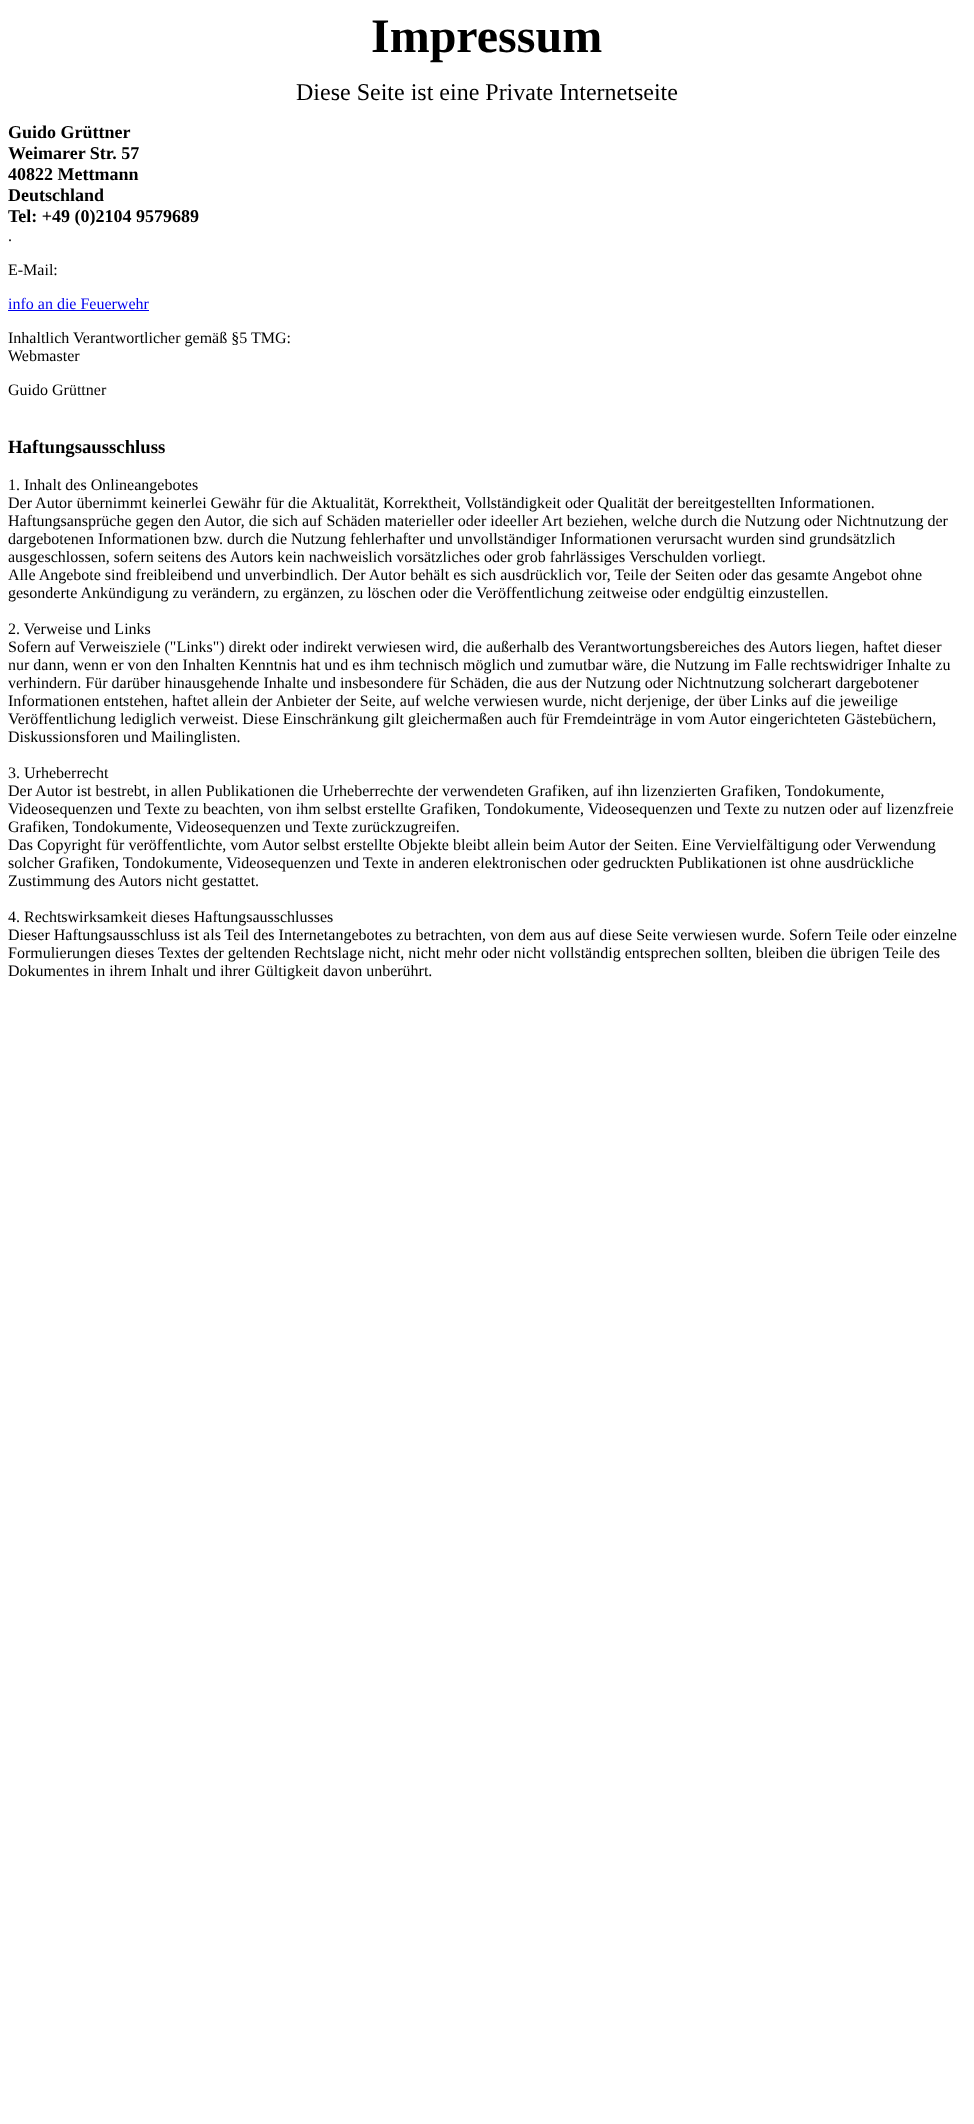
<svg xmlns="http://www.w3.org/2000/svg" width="974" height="2124">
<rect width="100%" height="100%" fill="#fff"/>
<text x="371" y="52" style="font-family:Liberation Serif;font-size:48px;font-weight:bold;fill:#000">Impressum</text>
<text x="296" y="100" style="font-family:Liberation Serif;font-size:24px;fill:#000">Diese Seite ist eine Private Internetseite</text>
<text x="8" y="138" style="font-family:Liberation Serif;font-size:18px;font-weight:bold;fill:#000">Guido Grüttner</text>
<text x="8" y="159" style="font-family:Liberation Serif;font-size:18px;font-weight:bold;fill:#000">Weimarer Str. 57</text>
<text x="8" y="180" style="font-family:Liberation Serif;font-size:18px;font-weight:bold;fill:#000">40822 Mettmann</text>
<text x="8" y="201" style="font-family:Liberation Serif;font-size:18px;font-weight:bold;fill:#000">Deutschland</text>
<text x="8" y="222" style="font-family:Liberation Serif;font-size:18px;font-weight:bold;fill:#000">Tel: +49 (0)2104 9579689</text>
<text x="8" y="241" style="font-family:Liberation Serif;font-size:16px;fill:#000">.</text>
<text x="8" y="275" style="font-family:Liberation Serif;font-size:16px;fill:#000">E-Mail:</text>
<text x="8" y="309" style="font-family:Liberation Serif;font-size:16px;fill:#00e">info an die Feuerwehr</text>
<rect x="8" y="310" width="141" height="1" fill="#00e"/>
<text x="8" y="343" style="font-family:Liberation Serif;font-size:16px;fill:#000">Inhaltlich Verantwortlicher gemäß §5 TMG:</text>
<text x="8" y="361" style="font-family:Liberation Serif;font-size:16px;fill:#000">Webmaster</text>
<text x="8" y="395" style="font-family:Liberation Serif;font-size:16px;fill:#000">Guido Grüttner</text>
<text x="8" y="453" style="font-family:Liberation Serif;font-size:18.75px;font-weight:bold;fill:#000">Haftungsausschluss</text>
<text x="8" y="490" style="font-family:Liberation Serif;font-size:16px;fill:#000">1. Inhalt des Onlineangebotes</text>
<text x="8" y="508" style="font-family:Liberation Serif;font-size:16px;fill:#000">Der Autor übernimmt keinerlei Gewähr für die</text>
<text x="311" y="508" style="font-family:Liberation Serif;font-size:16px;fill:#000">Aktualität, Korrektheit, Vollständigkeit oder Qualität der bereitgestellten Informationen.</text>
<text x="8" y="526" style="font-family:Liberation Serif;font-size:16px;fill:#000">Haftungsansprüche gegen den Autor, die sich auf Schäden materieller oder ideeller Art beziehen, welche durch die Nutzung oder Nichtnutzung der</text>
<text x="8" y="544" style="font-family:Liberation Serif;font-size:16px;fill:#000">dargebotenen Informationen bzw. durch die Nutzung fehlerhafter und unvollständiger Informationen verursacht wurden sind grundsätzlich</text>
<text x="8" y="562" style="font-family:Liberation Serif;font-size:16px;fill:#000">ausgeschlossen, sofern seitens des Autors kein nachweislich vorsätzliches oder grob fahrlässiges Verschulden vorliegt.</text>
<text x="8" y="580" style="font-family:Liberation Serif;font-size:16px;fill:#000">Alle Angebote sind freibleibend und unverbindlich. Der Autor behält es sich ausdrücklich vor, Teile der Seiten oder das gesamte Angebot ohne</text>
<text x="8" y="598" style="font-family:Liberation Serif;font-size:16px;fill:#000">gesonderte Ankündigung zu verändern, zu ergänzen, zu löschen oder die Veröffentlichung zeitweise oder endgültig einzustellen.</text>
<text x="8" y="634" style="font-family:Liberation Serif;font-size:16px;fill:#000">2. Verweise und Links</text>
<text x="8" y="652" style="font-family:Liberation Serif;font-size:16px;fill:#000">Sofern auf Verweisziele ("Links") direkt oder indirekt verwiesen wird, die außerhalb des Verantwortungsbereiches des Autors liegen, haftet dieser</text>
<text x="8" y="670" style="font-family:Liberation Serif;font-size:16px;fill:#000">nur dann, wenn er von den Inhalten Kenntnis hat und es ihm technisch möglich und zumutbar wäre, die Nutzung im Falle rechtswidriger Inhalte zu</text>
<text x="8" y="688" style="font-family:Liberation Serif;font-size:16px;fill:#000">verhindern. Für darüber hinausgehende Inhalte und insbesondere für Schäden, die aus der Nutzung oder Nichtnutzung solcherart dargebotener</text>
<text x="8" y="706" style="font-family:Liberation Serif;font-size:16px;fill:#000">Informationen entstehen, haftet allein der Anbieter der Seite, auf welche verwiesen wurde, nicht derjenige, der über Links auf die jeweilige</text>
<text x="8" y="724" style="font-family:Liberation Serif;font-size:16px;fill:#000">Veröffentlichung lediglich verweist. Diese Einschränkung gilt gleichermaßen auch für Fremdeinträge in vom Autor eingerichteten Gästebüchern,</text>
<text x="8" y="742" style="font-family:Liberation Serif;font-size:16px;fill:#000">Diskussionsforen und Mailinglisten.</text>
<text x="8" y="778" style="font-family:Liberation Serif;font-size:16px;fill:#000">3. Urheberrecht</text>
<text x="8" y="796" style="font-family:Liberation Serif;font-size:16px;fill:#000">Der Autor ist bestrebt, in allen Publikationen die Urheberrechte der verwendeten Grafiken, auf ihn lizenzierten Grafiken, Tondokumente,</text>
<text x="8" y="814" style="font-family:Liberation Serif;font-size:16px;fill:#000">Videosequenzen und Texte zu beachten, von ihm selbst erstellte Grafiken, Tondokumente, Videosequenzen und Texte zu nutzen oder auf lizenzfreie</text>
<text x="8" y="832" style="font-family:Liberation Serif;font-size:16px;fill:#000">Grafiken, Tondokumente, Videosequenzen und Texte zurückzugreifen.</text>
<text x="8" y="850" style="font-family:Liberation Serif;font-size:16px;fill:#000">Das Copyright für veröffentlichte, vom Autor selbst erstellte Objekte bleibt allein beim Autor der Seiten. Eine Vervielfältigung oder Verwendung</text>
<text x="8" y="868" style="font-family:Liberation Serif;font-size:16px;fill:#000">solcher Grafiken, Tondokumente, Videosequenzen und Texte in anderen elektronischen oder gedruckten Publikationen ist ohne ausdrückliche</text>
<text x="8" y="886" style="font-family:Liberation Serif;font-size:16px;fill:#000">Zustimmung des Autors nicht gestattet.</text>
<text x="8" y="922" style="font-family:Liberation Serif;font-size:16px;fill:#000">4. Rechtswirksamkeit dieses Haftungsausschlusses</text>
<text x="8" y="940" style="font-family:Liberation Serif;font-size:16px;fill:#000">Dieser Haftungsausschluss ist als Teil des Internetangebotes zu betrachten, von dem aus auf diese Seite verwiesen wurde. Sofern Teile oder einzelne</text>
<text x="8" y="958" style="font-family:Liberation Serif;font-size:16px;fill:#000">Formulierungen dieses Textes der geltenden Rechtslage nicht, nicht mehr oder nicht vollständig entsprechen sollten, bleiben die übrigen Teile des</text>
<text x="8" y="976" style="font-family:Liberation Serif;font-size:16px;fill:#000">Dokumentes in ihrem Inhalt und ihrer Gültigkeit davon unberührt.</text>
</svg>
